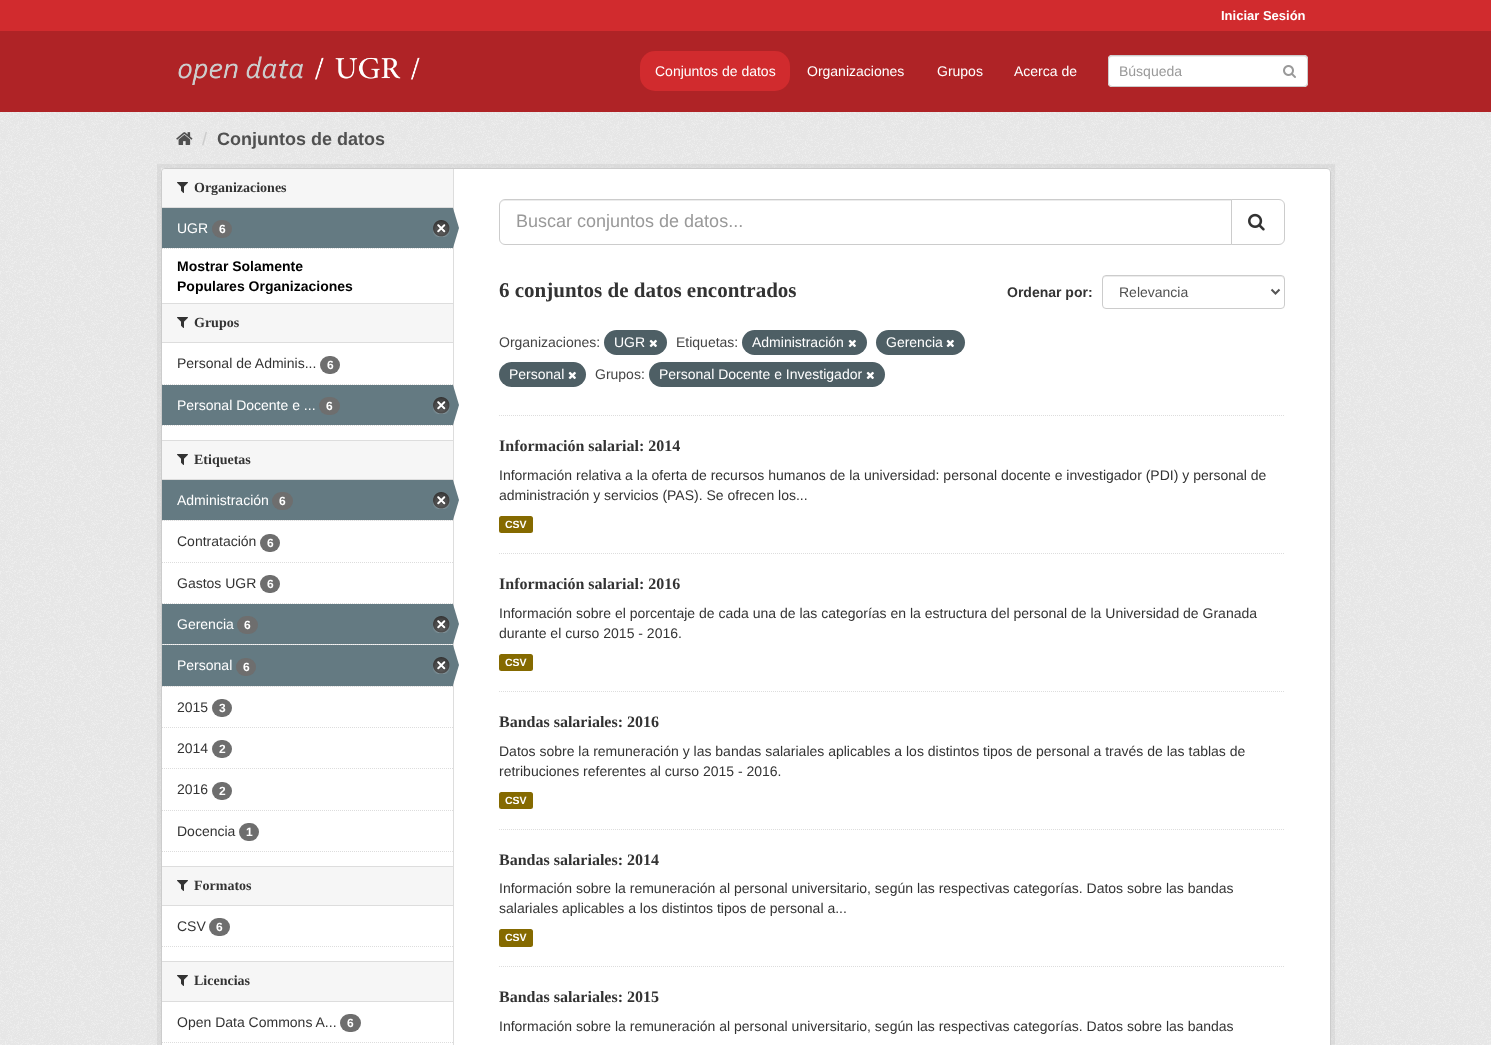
<svg xmlns="http://www.w3.org/2000/svg" width="1491" height="1045">
<rect width="100%" height="100%" fill="#d12b2e"/>
<text x="1221" y="20" style="font-family:Liberation Sans;font-size:13px;font-weight:bold;fill:#fff">Iniciar Sesión</text>
<rect y="31" width="1491" height="81" fill="#af2326"/>
<image x="178" y="56" width="242" height="29" href="media/1.png"/>
<rect x="640" y="51" width="150" height="40" rx="15" fill="#d12b2e"/>
<text x="655" y="76" style="font-family:Liberation Sans;font-size:14px;fill:#fff">Conjuntos de datos</text>
<text x="807" y="76" style="font-family:Liberation Sans;font-size:14px;fill:#fff">Organizaciones</text>
<text x="937" y="76" style="font-family:Liberation Sans;font-size:14px;fill:#fff">Grupos</text>
<text x="1014" y="76" style="font-family:Liberation Sans;font-size:14px;fill:#fff">Acerca de</text>
<rect x="1108" y="55" width="200" height="32" rx="4" fill="#fff"/>
<path d="M1112 57h192c2 0 3 1 3 3c0-2-1-4-3-4h-192c-2 0-3 2-3 4c0-2 1-3 3-3z" fill="#ececec"/>
<rect x="1108.5" y="55.5" width="199" height="31" rx="3.5" fill="none" stroke="#ccc"/>
<text x="1119" y="76" style="font-family:Liberation Sans;font-size:14px;fill:#999">Búsqueda</text>
<image x="1283" y="65" width="13" height="13" href="media/2.png"/>
<rect y="112" width="1491" height="933" fill="#eee"/>
<image x="0" y="112" width="1491" height="933" href="media/3.png"/>
<image x="176" y="132" width="17" height="13" href="media/4.png"/>
<text x="202" y="145" style="font-family:Liberation Sans;font-size:18px;fill:#ccc">/</text>
<text x="217" y="145" style="font-family:Liberation Sans;font-size:18px;font-weight:bold;fill:#505050">Conjuntos de datos</text>
<rect x="159" y="166" width="1174" height="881" fill="none" stroke="#0000000d" stroke-width="4"/>
<rect x="161.5" y="168.5" width="1169" height="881" rx="3.5" fill="#fff" stroke="#ccc"/>
<path d="M165 169h288v39h-291v-36c0-1.5 1.5-3 3-3z" fill="#f6f6f6"/>
<rect x="162" y="207" width="291" height="1" fill="#ddd"/>
<image x="177" y="182" width="11" height="11" href="media/5.png"/>
<text x="194" y="192" style="font-family:Liberation Serif;font-size:14px;font-weight:bold;fill:#333">Organizaciones</text>
<rect x="162" y="208" width="291" height="40" fill="#647a82"/>
<text x="177" y="233" style="font-family:Liberation Sans;font-size:14px;fill:#fff">UGR</text>
<rect x="212" y="220" width="20" height="18" rx="9" fill="#6e6e6e"/>
<text x="219" y="233" style="font-family:Liberation Sans;font-size:12px;font-weight:bold;fill:#fff">6</text>
<image x="433" y="220" width="17" height="17" href="media/6.png"/>
<rect x="453" y="169" width="1" height="876" fill="#ddd"/>
<path d="M453 248v-40l6 20z" fill="#647a82"/>
<path d="M162 248.5h291" fill="none" stroke="#ddd" stroke-dasharray="1 1"/>
<text x="177" y="271" style="font-family:Liberation Sans;font-size:14px;font-weight:bold;fill:#000">Mostrar Solamente</text>
<text x="177" y="291" style="font-family:Liberation Sans;font-size:14px;font-weight:bold;fill:#000">Populares Organizaciones</text>
<rect x="162" y="304" width="291" height="38" fill="#f6f6f6"/>
<rect x="162" y="303" width="291" height="1" fill="#ddd"/>
<rect x="162" y="342" width="291" height="1" fill="#ddd"/>
<image x="177" y="317" width="11" height="11" href="media/5.png"/>
<text x="194" y="327" style="font-family:Liberation Serif;font-size:14px;font-weight:bold;fill:#333">Grupos</text>
<path d="M162 384.5h291" fill="none" stroke="#ddd" stroke-dasharray="1 1"/>
<text x="177" y="368" style="font-family:Liberation Sans;font-size:14px;fill:#333">Personal de Adminis...</text>
<rect x="320" y="356" width="20" height="18" rx="9" fill="#6e6e6e"/>
<text x="327" y="369" style="font-family:Liberation Sans;font-size:12px;font-weight:bold;fill:#fff">6</text>
<rect x="162" y="385" width="291" height="40" fill="#647a82"/>
<text x="177" y="410" style="font-family:Liberation Sans;font-size:14px;fill:#fff">Personal Docente e ...</text>
<rect x="319" y="397" width="21" height="18" rx="9" fill="#6e6e6e"/>
<text x="326" y="410" style="font-family:Liberation Sans;font-size:12px;font-weight:bold;fill:#fff">6</text>
<image x="433" y="397" width="17" height="17" href="media/6.png"/>
<path d="M453 425v-40l6 20z" fill="#647a82"/>
<path d="M162 425.5h291" fill="none" stroke="#ddd" stroke-dasharray="1 1"/>
<rect x="162" y="441" width="291" height="38" fill="#f6f6f6"/>
<rect x="162" y="440" width="291" height="1" fill="#ddd"/>
<rect x="162" y="479" width="291" height="1" fill="#ddd"/>
<image x="177" y="454" width="11" height="11" href="media/5.png"/>
<text x="194" y="464" style="font-family:Liberation Serif;font-size:14px;font-weight:bold;fill:#333">Etiquetas</text>
<rect x="163" y="520" width="289" height="1" fill="#f6f6f6"/>
<path d="M162 520.5h291" fill="none" stroke="#ddd" stroke-dasharray="1 1"/>
<rect x="162" y="480" width="291" height="40" fill="#647a82"/>
<text x="177" y="505" style="font-family:Liberation Sans;font-size:14px;fill:#fff">Administración</text>
<rect x="272" y="492" width="21" height="18" rx="9" fill="#6e6e6e"/>
<text x="279" y="505" style="font-family:Liberation Sans;font-size:12px;font-weight:bold;fill:#fff">6</text>
<image x="433" y="492" width="17" height="17" href="media/6.png"/>
<path d="M453 520v-40l6 20z" fill="#647a82"/>
<path d="M162 562.5h291" fill="none" stroke="#ddd" stroke-dasharray="1 1"/>
<text x="177" y="546" style="font-family:Liberation Sans;font-size:14px;fill:#333">Contratación</text>
<rect x="260" y="534" width="20" height="18" rx="9" fill="#6e6e6e"/>
<text x="267" y="547" style="font-family:Liberation Sans;font-size:12px;font-weight:bold;fill:#fff">6</text>
<path d="M162 603.5h291" fill="none" stroke="#ddd" stroke-dasharray="1 1"/>
<text x="177" y="588" style="font-family:Liberation Sans;font-size:14px;fill:#333">Gastos UGR</text>
<rect x="260" y="575" width="20" height="18" rx="9" fill="#6e6e6e"/>
<text x="267" y="588" style="font-family:Liberation Sans;font-size:12px;font-weight:bold;fill:#fff">6</text>
<rect x="163" y="644" width="289" height="1" fill="#f6f6f6"/>
<path d="M162 644.5h291" fill="none" stroke="#ddd" stroke-dasharray="1 1"/>
<rect x="162" y="604" width="291" height="40" fill="#647a82"/>
<text x="177" y="629" style="font-family:Liberation Sans;font-size:14px;fill:#fff">Gerencia</text>
<rect x="237" y="616" width="21" height="18" rx="9" fill="#6e6e6e"/>
<text x="244" y="629" style="font-family:Liberation Sans;font-size:12px;font-weight:bold;fill:#fff">6</text>
<image x="433" y="616" width="17" height="17" href="media/6.png"/>
<path d="M453 644v-40l6 20z" fill="#647a82"/>
<rect x="163" y="686" width="289" height="1" fill="#f6f6f6"/>
<path d="M162 686.5h291" fill="none" stroke="#ddd" stroke-dasharray="1 1"/>
<rect x="162" y="645" width="291" height="41" fill="#647a82"/>
<text x="177" y="670" style="font-family:Liberation Sans;font-size:14px;fill:#fff">Personal</text>
<rect x="236" y="658" width="20" height="18" rx="9" fill="#6e6e6e"/>
<text x="243" y="671" style="font-family:Liberation Sans;font-size:12px;font-weight:bold;fill:#fff">6</text>
<image x="433" y="657" width="17" height="17" href="media/6.png"/>
<path d="M453 685v-40l6 20z" fill="#647a82"/>
<path d="M162 727.5h291" fill="none" stroke="#ddd" stroke-dasharray="1 1"/>
<text x="177" y="712" style="font-family:Liberation Sans;font-size:14px;fill:#333">2015</text>
<rect x="212" y="699" width="20" height="18" rx="9" fill="#6e6e6e"/>
<text x="219" y="712" style="font-family:Liberation Sans;font-size:12px;font-weight:bold;fill:#fff">3</text>
<path d="M162 768.5h291" fill="none" stroke="#ddd" stroke-dasharray="1 1"/>
<text x="177" y="753" style="font-family:Liberation Sans;font-size:14px;fill:#333">2014</text>
<rect x="212" y="740" width="20" height="18" rx="9" fill="#6e6e6e"/>
<text x="219" y="753" style="font-family:Liberation Sans;font-size:12px;font-weight:bold;fill:#fff">2</text>
<path d="M162 810.5h291" fill="none" stroke="#ddd" stroke-dasharray="1 1"/>
<text x="177" y="794" style="font-family:Liberation Sans;font-size:14px;fill:#333">2016</text>
<rect x="212" y="782" width="20" height="18" rx="9" fill="#6e6e6e"/>
<text x="219" y="795" style="font-family:Liberation Sans;font-size:12px;font-weight:bold;fill:#fff">2</text>
<text x="177" y="836" style="font-family:Liberation Sans;font-size:14px;fill:#333">Docencia</text>
<rect x="239" y="823" width="20" height="18" rx="9" fill="#6e6e6e"/>
<text x="246" y="836" style="font-family:Liberation Sans;font-size:12px;font-weight:bold;fill:#fff">1</text>
<path d="M162 851.5h291" fill="none" stroke="#ddd" stroke-dasharray="1 1"/>
<rect x="162" y="867" width="291" height="38" fill="#f6f6f6"/>
<rect x="162" y="866" width="291" height="1" fill="#ddd"/>
<rect x="162" y="905" width="291" height="1" fill="#ddd"/>
<image x="177" y="880" width="11" height="11" href="media/5.png"/>
<text x="194" y="890" style="font-family:Liberation Serif;font-size:14px;font-weight:bold;fill:#333">Formatos</text>
<text x="177" y="931" style="font-family:Liberation Sans;font-size:14px;fill:#333">CSV</text>
<rect x="209" y="918" width="21" height="18" rx="9" fill="#6e6e6e"/>
<text x="216" y="931" style="font-family:Liberation Sans;font-size:12px;font-weight:bold;fill:#fff">6</text>
<path d="M162 946.5h291" fill="none" stroke="#ddd" stroke-dasharray="1 1"/>
<rect x="162" y="962" width="291" height="39" fill="#f6f6f6"/>
<rect x="162" y="961" width="291" height="1" fill="#ddd"/>
<rect x="162" y="1001" width="291" height="1" fill="#ddd"/>
<image x="177" y="975" width="11" height="11" href="media/5.png"/>
<text x="194" y="985" style="font-family:Liberation Serif;font-size:14px;font-weight:bold;fill:#333">Licencias</text>
<text x="177" y="1027" style="font-family:Liberation Sans;font-size:14px;fill:#333">Open Data Commons A...</text>
<rect x="340" y="1014" width="21" height="18" rx="9" fill="#6e6e6e"/>
<text x="347" y="1027" style="font-family:Liberation Sans;font-size:12px;font-weight:bold;fill:#fff">6</text>
<path d="M162 1042.5h291" fill="none" stroke="#ddd" stroke-dasharray="1 1"/>
<path d="M499 415.5h786" fill="none" stroke="#ddd" stroke-dasharray="1 1"/>
<path d="M505 201h726v-1h-726c-3 0-5 3-5 6c0-3 2-5 5-5z" fill="#ececec"/>
<path d="M505 199.5h726.5v45h-726.5c-3 0-5.5-2.5-5.5-5.5v-34c0-3 2.5-5.5 5.5-5.5z" fill="none" stroke="#ccc"/>
<text x="516" y="227" style="font-family:Liberation Sans;font-size:18px;fill:#999">Buscar conjuntos de datos...</text>
<path d="M1231.5 199.5h47.5c3 0 5.5 2.5 5.5 5.5v34c0 3-2.5 5.5-5.5 5.5h-47.5z" fill="#fff" stroke="#ccc"/>
<image x="1248" y="213" width="17" height="18" href="media/7.png"/>
<text x="499" y="297" style="font-family:Liberation Serif;font-size:21px;font-weight:bold;fill:#333">6 conjuntos de datos encontrados</text>
<text x="1007" y="297" style="font-family:Liberation Sans;font-size:14px;font-weight:bold;fill:#333">Ordenar por:</text>
<path d="M1106 277h176l1 1l1 2v-1c0-2-1-3-3-3h-175c-2 0-3 1-3 3v1c0-2 1-3 3-3z" fill="#ececec"/>
<rect x="1102.5" y="275.5" width="182" height="33" rx="3.5" fill="none" stroke="#ccc"/>
<path d="M1271.5 289.5l4 4l4-4" fill="none" stroke="#555" stroke-width="2"/>
<text x="1119" y="297" style="font-family:Liberation Sans;font-size:14px;fill:#505050">Relevancia</text>
<text x="499" y="347" style="font-family:Liberation Sans;font-size:14px;fill:#444">Organizaciones:</text>
<rect x="604" y="330" width="63" height="25" rx="12.5" fill="#4e5f65"/>
<text x="614" y="347" style="font-family:Liberation Sans;font-size:14px;fill:#fff">UGR</text>
<image x="649" y="339" width="8" height="9" href="media/8.png"/>
<text x="676" y="347" style="font-family:Liberation Sans;font-size:14px;fill:#444">Etiquetas:</text>
<rect x="742" y="330" width="125" height="25" rx="12.5" fill="#4e5f65"/>
<text x="752" y="347" style="font-family:Liberation Sans;font-size:14px;fill:#fff">Administración</text>
<image x="848" y="339" width="8" height="9" href="media/8.png"/>
<rect x="876" y="330" width="89" height="25" rx="12.5" fill="#4e5f65"/>
<text x="886" y="347" style="font-family:Liberation Sans;font-size:14px;fill:#fff">Gerencia</text>
<image x="946" y="339" width="8" height="9" href="media/8.png"/>
<rect x="499" y="362" width="87" height="25" rx="12.5" fill="#4e5f65"/>
<text x="509" y="379" style="font-family:Liberation Sans;font-size:14px;fill:#fff">Personal</text>
<image x="568" y="371" width="8" height="9" href="media/8.png"/>
<text x="595" y="379" style="font-family:Liberation Sans;font-size:14px;fill:#444">Grupos:</text>
<rect x="649" y="362" width="236" height="25" rx="12.5" fill="#4e5f65"/>
<text x="659" y="379" style="font-family:Liberation Sans;font-size:14px;fill:#fff">Personal Docente e Investigador</text>
<image x="866" y="371" width="8" height="9" href="media/8.png"/>
<path d="M499 553.5h786" fill="none" stroke="#ddd" stroke-dasharray="1 1"/>
<text x="499" y="451" style="font-family:Liberation Serif;font-size:16px;font-weight:bold;fill:#333">Información salarial: 2014</text>
<text x="499" y="480" style="font-family:Liberation Sans;font-size:14px;fill:#333">Información relativa a la oferta de recursos humanos de la universidad: personal docente e investigador (PDI) y personal de</text>
<text x="499" y="500" style="font-family:Liberation Sans;font-size:14px;fill:#333">administración y servicios (PAS). Se ofrecen los...</text>
<rect x="499" y="516" width="34" height="17" rx="2.5" fill="#856a00"/>
<text x="505" y="528" style="font-family:Liberation Sans;font-size:10.5px;font-weight:bold;fill:#fff">CSV</text>
<path d="M499 691.5h786" fill="none" stroke="#ddd" stroke-dasharray="1 1"/>
<text x="499" y="589" style="font-family:Liberation Serif;font-size:16px;font-weight:bold;fill:#333">Información salarial: 2016</text>
<text x="499" y="618" style="font-family:Liberation Sans;font-size:14px;fill:#333">Información sobre el porcentaje de cada una de las categorías en la estructura del personal de la Universidad de Granada</text>
<text x="499" y="638" style="font-family:Liberation Sans;font-size:14px;fill:#333">durante el curso 2015 - 2016.</text>
<rect x="499" y="654" width="34" height="17" rx="2.5" fill="#856a00"/>
<text x="505" y="666" style="font-family:Liberation Sans;font-size:10.5px;font-weight:bold;fill:#fff">CSV</text>
<path d="M499 829.5h786" fill="none" stroke="#ddd" stroke-dasharray="1 1"/>
<text x="499" y="727" style="font-family:Liberation Serif;font-size:16px;font-weight:bold;fill:#333">Bandas salariales: 2016</text>
<text x="499" y="756" style="font-family:Liberation Sans;font-size:14px;fill:#333">Datos sobre la remuneración y las bandas salariales aplicables a los distintos tipos de personal a través de las tablas de</text>
<text x="499" y="776" style="font-family:Liberation Sans;font-size:14px;fill:#333">retribuciones referentes al curso 2015 - 2016.</text>
<rect x="499" y="792" width="34" height="17" rx="2.5" fill="#856a00"/>
<text x="505" y="804" style="font-family:Liberation Sans;font-size:10.5px;font-weight:bold;fill:#fff">CSV</text>
<path d="M499 966.5h786" fill="none" stroke="#ddd" stroke-dasharray="1 1"/>
<text x="499" y="865" style="font-family:Liberation Serif;font-size:16px;font-weight:bold;fill:#333">Bandas salariales: 2014</text>
<text x="499" y="893" style="font-family:Liberation Sans;font-size:14px;fill:#333">Información sobre la remuneración al personal universitario, según las respectivas categorías. Datos sobre las bandas</text>
<text x="499" y="913" style="font-family:Liberation Sans;font-size:14px;fill:#333">salariales aplicables a los distintos tipos de personal a...</text>
<rect x="499" y="929" width="34" height="18" rx="2.5" fill="#856a00"/>
<text x="505" y="941" style="font-family:Liberation Sans;font-size:10.5px;font-weight:bold;fill:#fff">CSV</text>
<text x="499" y="1002" style="font-family:Liberation Serif;font-size:16px;font-weight:bold;fill:#333">Bandas salariales: 2015</text>
<text x="499" y="1031" style="font-family:Liberation Sans;font-size:14px;fill:#333">Información sobre la remuneración al personal universitario, según las respectivas categorías. Datos sobre las bandas</text>
</svg>
